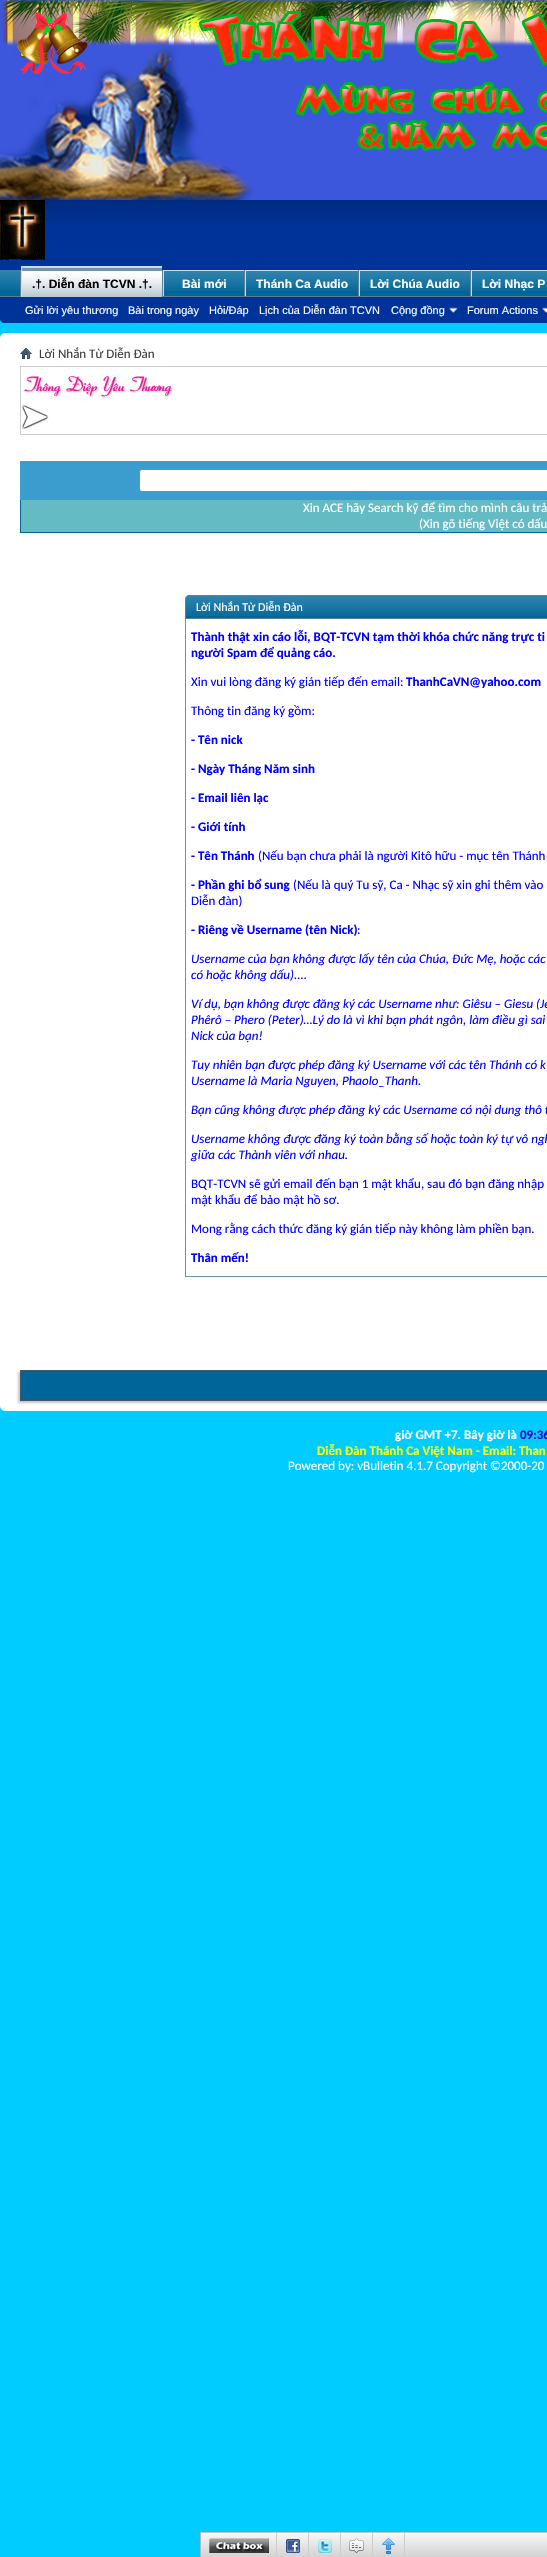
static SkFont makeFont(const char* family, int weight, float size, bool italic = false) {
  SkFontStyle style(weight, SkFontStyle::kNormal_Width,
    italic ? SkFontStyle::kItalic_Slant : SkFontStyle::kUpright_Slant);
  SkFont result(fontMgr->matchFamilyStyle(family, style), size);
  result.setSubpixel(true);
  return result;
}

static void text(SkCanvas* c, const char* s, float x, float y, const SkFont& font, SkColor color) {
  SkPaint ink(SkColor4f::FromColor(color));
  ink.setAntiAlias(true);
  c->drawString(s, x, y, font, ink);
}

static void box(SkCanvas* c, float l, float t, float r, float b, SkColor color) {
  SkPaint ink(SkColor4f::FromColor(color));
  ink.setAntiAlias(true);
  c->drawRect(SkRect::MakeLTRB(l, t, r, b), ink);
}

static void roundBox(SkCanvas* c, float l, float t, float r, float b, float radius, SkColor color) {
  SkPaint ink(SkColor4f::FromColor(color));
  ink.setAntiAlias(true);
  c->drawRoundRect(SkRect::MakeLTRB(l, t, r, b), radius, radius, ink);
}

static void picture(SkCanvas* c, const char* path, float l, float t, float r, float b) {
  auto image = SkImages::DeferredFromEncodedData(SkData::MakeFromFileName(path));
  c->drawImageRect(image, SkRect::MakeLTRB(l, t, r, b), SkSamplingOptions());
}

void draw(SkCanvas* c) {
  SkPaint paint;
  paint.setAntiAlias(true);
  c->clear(0xff00ccff);
  picture(c, "img_01.png", 0, 0, 547, 200);
  paint.setColor(0xff003399);
  c->drawPath(SkPathBuilder().moveTo(0, 200).lineTo(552, 200).lineTo(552, 318).cubicTo(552, 321, 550, 323, 547, 323).lineTo(5, 323).cubicTo(2, 323, 0, 321, 0, 318).close().detach(), paint);
  picture(c, "img_02.png", 45, 200, 547, 226);
  picture(c, "img_03.png", 0, 200, 45, 260);
  c->drawPath(SkPathBuilder().moveTo(0, 270).lineTo(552, 270).lineTo(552, 318).cubicTo(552, 321, 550, 323, 547, 323).lineTo(5, 323).cubicTo(2, 323, 0, 321, 0, 318).close().detach(), paint);
  box(c, 0, 270, 20, 296, 0xff006699);
  picture(c, "img_04.png", 0, 270, 20, 290);
  box(c, 162, 270, 163, 296, 0xff5a7f97);
  box(c, 20, 270, 21, 296, 0xff5a7f97);
  box(c, 244, 270, 245, 297, 0xff5a7f97);
  box(c, 163, 270, 244, 271, 0xffcedfeb);
  box(c, 163, 270, 164, 297, 0xffcedfeb);
  box(c, 358, 270, 359, 297, 0xff5a7f97);
  box(c, 245, 270, 358, 271, 0xffcedfeb);
  box(c, 245, 270, 246, 297, 0xffcedfeb);
  box(c, 470, 270, 471, 297, 0xff5a7f97);
  box(c, 359, 270, 470, 271, 0xffcedfeb);
  box(c, 359, 270, 360, 297, 0xffcedfeb);
  box(c, 471, 270, 547, 271, 0xffcedfeb);
  box(c, 471, 270, 472, 297, 0xffcedfeb);
  box(c, 0, 296, 547, 297, 0xff5a7f97);
  box(c, 22, 267, 162, 297, 0xff7192a8);
  picture(c, "img_05.png", 22, 267, 162, 297);
  box(c, 21, 266, 162, 267, 0xffcedfeb);
  box(c, 21, 266, 22, 297, 0xffcedfeb);
  SkFont face1 = makeFont("Liberation Sans", 700, 12);
  text(c, ".†. Diễn đàn TCVN .†.", 32, 288, face1, 0xff000000);
  SkFont face2 = makeFont("Liberation Sans", 400, 11);
  text(c, "Gửi lời yêu thương", 25, 314, face2, 0xffffffff);
  text(c, "Bài trong ngày", 128, 314, face2, 0xffffffff);
  text(c, "Hỏi/Ðáp", 209, 314, face2, 0xffffffff);
  text(c, "Lịch của Diễn đàn TCVN", 259, 314, face2, 0xffffffff);
  text(c, "Cộng đồng", 391, 314, face2, 0xffffffff);
  picture(c, "img_06.png", 449, 307, 458, 313);
  text(c, "Forum Actions", 467, 314, face2, 0xffffffff);
  picture(c, "img_07.png", 542, 307, 547, 313);
  box(c, 164, 271, 244, 296, 0xff006699);
  picture(c, "img_08.png", 164, 271, 244, 291);
  text(c, "Bài mới", 182, 288, face1, 0xffffffff);
  box(c, 246, 271, 358, 296, 0xff006699);
  picture(c, "img_09.png", 246, 271, 358, 291);
  text(c, "Thánh Ca Audio", 256, 288, face1, 0xffffffff);
  box(c, 360, 271, 470, 296, 0xff006699);
  picture(c, "img_10.png", 360, 271, 470, 291);
  text(c, "Lời Chúa Audio", 370, 288, face1, 0xffffffff);
  box(c, 472, 271, 547, 296, 0xff006699);
  picture(c, "img_11.png", 472, 271, 547, 291);
  text(c, "Lời Nhạc P", 482, 288, face1, 0xffffffff);
  roundBox(c, 0, 333, 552, 1411, 5, 0xffffffff);
  picture(c, "img_12.png", 20, 348, 32, 359);
  SkFont face3 = makeFont("Carlito", 400, 13);
  text(c, "Lời Nhắn Từ Diễn Ðàn", 39, 358, face3, 0xff3e3e3e);
  box(c, 20, 366, 547, 367, 0xffcccccc);
  box(c, 20, 434, 547, 435, 0xffcccccc);
  box(c, 20, 366, 21, 435, 0xffcccccc);
  picture(c, "img_13.png", 24, 376, 173, 398);
  picture(c, "img_14.png", 22, 405, 49, 429);
  box(c, 21, 500, 547, 532, 0xff64bbc3);
  box(c, 20, 532, 547, 533, 0xff006699);
  box(c, 20, 500, 21, 533, 0xff006699);
  box(c, 21, 462, 547, 499, 0xff3a9dcd);
  box(c, 20, 461, 547, 462, 0xff3a9dcd);
  box(c, 20, 499, 547, 500, 0xff3a9dcd);
  box(c, 20, 461, 21, 500, 0xff3a9dcd);
  paint.setColor(0xffffffff);
  c->drawRoundRect(SkRect::MakeLTRB(139.5f, 469.5f, 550.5f, 491.5f), 2.5f, 2.5f, paint);
  paint.setStyle(SkPaint::kStroke_Style);
  paint.setStrokeWidth(1);
  paint.setColor(0xff6b91ab);
  c->drawRoundRect(SkRect::MakeLTRB(139.5f, 469.5f, 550.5f, 491.5f), 2.5f, 2.5f, paint);
  text(c, "Xin ACE hãy Search kỹ để tìm cho mình câu trả", 303, 512, face3, 0xffffffff);
  text(c, "(Xin gõ tiếng Việt có dấu", 419, 528, face3, 0xffffffff);
  paint.setStyle(SkPaint::kFill_Style);
  paint.setColor(0xff006699);
  c->drawPath(SkPathBuilder().moveTo(190, 595).lineTo(547, 595).cubicTo(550, 595, 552, 597, 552, 600).lineTo(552, 619).lineTo(185, 619).lineTo(185, 600).cubicTo(185, 597, 187, 595, 190, 595).close().detach(), paint);
  picture(c, "img_15.png", 185, 596, 547, 616);
  paint.setStyle(SkPaint::kStroke_Style);
  paint.setColor(0xff5a7f97);
  c->drawPath(SkPathBuilder().moveTo(190, 595.5f).lineTo(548, 595.5f).cubicTo(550.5f, 595.5f, 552.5f, 597.5f, 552.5f, 600).lineTo(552.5f, 618.5f).lineTo(185.5f, 618.5f).lineTo(185.5f, 600).cubicTo(185.5f, 597.5f, 187.5f, 595.5f, 190, 595.5f).close().detach(), paint);
  SkFont face4 = makeFont("Carlito", 400, 12);
  text(c, "Lời Nhắn Từ Diễn Ðàn", 196, 611, face4, 0xffffffff);
  box(c, 185, 1276, 547, 1277, 0xff6b91ab);
  box(c, 185, 619, 186, 1277, 0xff6b91ab);
  SkFont face5 = makeFont("Carlito", 700, 13);
  text(c, "Thành thật xin cáo lỗi, BQT-TCVN tạm thời khóa chức năng trực ti", 191, 641, face5, 0xff0000ff);
  text(c, "người Spam để quảng cáo.", 191, 657, face5, 0xff0000ff);
  text(c, "Xin vui lòng đăng ký gián tiếp đến email:", 191, 686, face3, 0xff0000ff);
  text(c, "ThanhCaVN@yahoo.com", 406, 686, face5, 0xff0000ff);
  text(c, "Thông tin đăng ký gồm:", 191, 715, face3, 0xff0000ff);
  text(c, "- Tên nick", 191, 744, face5, 0xff0000ff);
  text(c, "- Ngày Tháng Năm sinh", 191, 773, face5, 0xff0000ff);
  text(c, "- Email liên lạc", 191, 802, face5, 0xff0000ff);
  text(c, "- Giới tính", 191, 831, face5, 0xff0000ff);
  text(c, "- Tên Thánh", 191, 860, face5, 0xff0000ff);
  text(c, "(Nếu bạn chưa phải là người Kitô hữu - mục tên Thánh", 258, 860, face3, 0xff0000ff);
  text(c, "- Phần ghi bổ sung", 191, 889, face5, 0xff0000ff);
  text(c, "(Nếu là quý Tu sỹ, Ca - Nhạc sỹ xin ghi thêm vào", 293, 889, face3, 0xff0000ff);
  text(c, "Diễn đàn)", 191, 905, face3, 0xff0000ff);
  text(c, "- Riêng về Username (tên Nick)", 191, 934, face5, 0xff0000ff);
  text(c, ":", 357, 934, face3, 0xff0000ff);
  SkFont face6 = makeFont("Carlito", 400, 13, true);
  text(c, "Username của bạn không được lấy tên của Chúa, Đức Mẹ, hoặc các", 191, 963, face6, 0xff0000ff);
  text(c, "có hoặc không dấu)....", 191, 979, face6, 0xff0000ff);
  text(c, "Ví dụ, bạn không được đăng ký các Username như: Giêsu – Giesu (Je", 191, 1008, face6, 0xff0000ff);
  text(c, "Phêrô – Phero (Peter)…Lý do là vì khi bạn phát ngôn, làm điều gì sai", 191, 1024, face6, 0xff0000ff);
  text(c, "Nick của bạn!", 191, 1040, face6, 0xff0000ff);
  text(c, "Tuy nhiên bạn được phép đăng ký Username với các tên Thánh có k", 191, 1069, face6, 0xff0000ff);
  text(c, "Username là Maria Nguyen, Phaolo_Thanh.", 191, 1085, face6, 0xff0000ff);
  text(c, "Bạn cũng không được phép đăng ký các Username có nội dung thô t", 191, 1114, face6, 0xff0000ff);
  text(c, "Username không được đăng ký toàn bằng số hoặc toàn ký tự vô ngh", 191, 1143, face6, 0xff0000ff);
  text(c, "giữa các Thành viên với nhau.", 191, 1159, face6, 0xff0000ff);
  text(c, "BQT-TCVN sẽ gửi email đến bạn 1 mật khẩu, sau đó bạn đăng nhập", 191, 1188, face3, 0xff0000ff);
  text(c, "mật khẩu để bảo mật hồ sơ.", 191, 1204, face3, 0xff0000ff);
  text(c, "Mong rằng cách thức đăng ký gián tiếp này không làm phiền bạn.", 191, 1233, face3, 0xff0000ff);
  text(c, "Thân mến!", 191, 1262, face5, 0xff0000ff);
  paint.setStyle(SkPaint::kFill_Style);
  paint.setColor(0xffc8c8c8);
  paint.setMaskFilter(SkMaskFilter::MakeBlur(kNormal_SkBlurStyle, 1));
  c->drawRect(SkRect::MakeLTRB(18, 1372, 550, 1403), paint);
  paint.setMaskFilter(nullptr);
  paint.setColor(0xff006699);
  c->drawRect(SkRect::MakeLTRB(20.5f, 1370.5f, 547.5f, 1400.5f), paint);
  paint.setStyle(SkPaint::kStroke_Style);
  paint.setColor(0xff425769);
  c->drawRect(SkRect::MakeLTRB(20.5f, 1370.5f, 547.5f, 1400.5f), paint);
  text(c, "giờ GMT +7. Bây giờ là", 395, 1439, face5, 0xffffffff);
  text(c, "09:36", 520, 1439, face5, 0xff3300cc);
  text(c, "Diễn Đàn Thánh Ca Việt Nam - Email: Than", 317, 1455, face5, 0xffffff00);
  text(c, "Powered by: vBulletin 4.1.7 Copyright ©2000-20", 288, 1470, face3, 0xffffffff);
  picture(c, "img_16.png", 201, 2532, 547, 2557);
  box(c, 200, 2532, 201, 2557, 0xffb5b5b5);
  box(c, 276, 2533, 277, 2556, 0xffcccccc);
  picture(c, "img_17.png", 209, 2538, 269, 2553);
  box(c, 308, 2533, 309, 2556, 0xffcccccc);
  picture(c, "img_18.png", 286, 2539, 300, 2553);
  box(c, 340, 2533, 341, 2556, 0xffcccccc);
  picture(c, "img_19.png", 318, 2539, 332, 2553);
  box(c, 372, 2533, 373, 2556, 0xffcccccc);
  picture(c, "img_20.png", 349, 2538, 364, 2553);
  box(c, 404, 2533, 405, 2556, 0xffcccccc);
  picture(c, "img_21.png", 382, 2538, 395, 2554);
}
